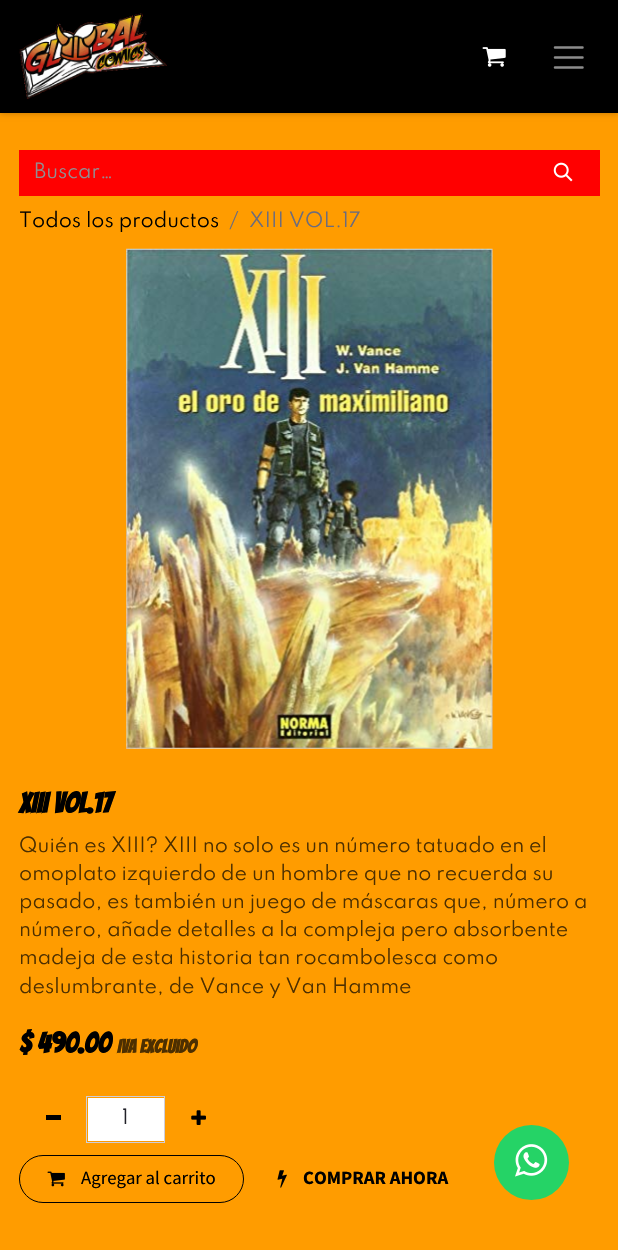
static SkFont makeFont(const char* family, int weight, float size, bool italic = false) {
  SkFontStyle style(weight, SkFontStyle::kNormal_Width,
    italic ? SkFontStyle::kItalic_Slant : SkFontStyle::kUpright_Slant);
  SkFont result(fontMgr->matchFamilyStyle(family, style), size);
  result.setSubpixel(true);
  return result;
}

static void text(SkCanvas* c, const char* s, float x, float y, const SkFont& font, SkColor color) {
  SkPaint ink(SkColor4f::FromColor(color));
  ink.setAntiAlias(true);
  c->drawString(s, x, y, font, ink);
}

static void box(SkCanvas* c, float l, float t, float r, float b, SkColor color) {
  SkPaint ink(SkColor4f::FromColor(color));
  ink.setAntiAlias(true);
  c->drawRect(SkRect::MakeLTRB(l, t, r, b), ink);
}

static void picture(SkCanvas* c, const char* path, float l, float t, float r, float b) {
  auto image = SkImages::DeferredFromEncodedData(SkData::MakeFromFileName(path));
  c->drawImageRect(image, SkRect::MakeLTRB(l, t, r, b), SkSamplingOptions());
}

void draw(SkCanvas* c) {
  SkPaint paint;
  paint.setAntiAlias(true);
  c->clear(0xffff9c00);
  paint.setColor(0x40000000);
  paint.setMaskFilter(SkMaskFilter::MakeBlur(kNormal_SkBlurStyle, 3));
  c->drawRect(SkRect::MakeLTRB(0, 0, 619, 113), paint);
  paint.setMaskFilter(nullptr);
  box(c, 0, 0, 618, 113, 0xff000000);
  picture(c, "img_01.png", 19, 13, 167, 99);
  picture(c, "img_02.png", 482, 47, 506, 67);
  paint.setStyle(SkPaint::kStroke_Style);
  paint.setStrokeWidth(2.5f);
  paint.setStrokeCap(SkPaint::kRound_Cap);
  paint.setColor(0xff8c8c8c);
  c->drawPath(SkPathBuilder().moveTo(555, 47.5f).lineTo(582.5f, 47.5f).moveTo(555, 57.5f).lineTo(582.5f, 57.5f).moveTo(555, 67.5f).lineTo(582.5f, 67.5f).detach(), paint);
  box(c, 19, 150, 600, 196, 0xffff0000);
  SkFont face1 = makeFont("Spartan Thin", 400, 18.75f);
  text(c, "Buscar…", 34, 178, face1, 0xff909094);
  picture(c, "img_03.png", 553, 162, 573, 182);
  text(c, "Todos los productos", 19, 227, face1, 0xff000000);
  text(c, "/", 229, 227, face1, 0xff6c6c7d);
  text(c, "XIII VOL.17", 249, 227, face1, 0xff6c6c7d);
  picture(c, "img_04.png", 126, 248, 493, 749);
  SkFont face2 = makeFont("Bangers", 700, 28.5f);
  text(c, "XIII VOL.17", 19, 813, face2, 0xff000000);
  text(c, "Quién es XIII? XIII no solo es un número tatuado en el", 19, 852, face1, 0xff4d2f00);
  text(c, "omoplato izquierdo de un hombre que no recuerda su", 19, 880, face1, 0xff4d2f00);
  text(c, "pasado, es también un juego de máscaras que, número a", 19, 908, face1, 0xff4d2f00);
  text(c, "número, añade detalles a la compleja pero absorbente", 19, 936, face1, 0xff4d2f00);
  text(c, "madeja de esta historia tan rocambolesca como", 19, 964, face1, 0xff4d2f00);
  text(c, "deslumbrante, de Vance y Van Hamme", 19, 993, face1, 0xff4d2f00);
  text(c, "$ 490.00", 19, 1053, face2, 0xff000000);
  SkFont face3 = makeFont("Bangers", 700, 18.75f);
  text(c, "IVA excluido", 117, 1053, face3, 0xff4d2f00);
  box(c, 46, 1115, 61, 1120, 0xff000000);
  box(c, 88, 1098, 164, 1141, 0xffffffff);
  paint.setStrokeWidth(1);
  paint.setStrokeCap(SkPaint::kButt_Cap);
  paint.setColor(0xffceceda);
  c->drawRect(SkRect::MakeLTRB(86.5f, 1096.5f, 164.5f, 1142.5f), paint);
  text(c, "1", 122, 1124, face1, 0xff212129);
  picture(c, "img_05.png", 191, 1110, 206, 1125);
  paint.setColor(0xff000000);
  c->drawRoundRect(SkRect::MakeLTRB(19.5f, 1155.5f, 243.5f, 1202.5f), 23.5f, 23.5f, paint);
  picture(c, "img_06.png", 47, 1171, 65, 1187);
  SkFont face4 = makeFont("Source Sans Pro", 400, 18.75f);
  text(c, "Agregar al carrito", 81, 1184, face4, 0xff000000);
  picture(c, "img_07.png", 277, 1170, 287, 1188);
  SkFont face5 = makeFont("Source Sans Pro", 700, 18.75f);
  text(c, "COMPRAR AHORA", 303, 1184, face5, 0xff000000);
  paint.setStyle(SkPaint::kFill_Style);
  paint.setColor(0xff25d366);
  c->drawCircle(531.5f, 1162.5f, 37.5f, paint);
  picture(c, "img_08.png", 515, 1144, 548, 1177);
}
